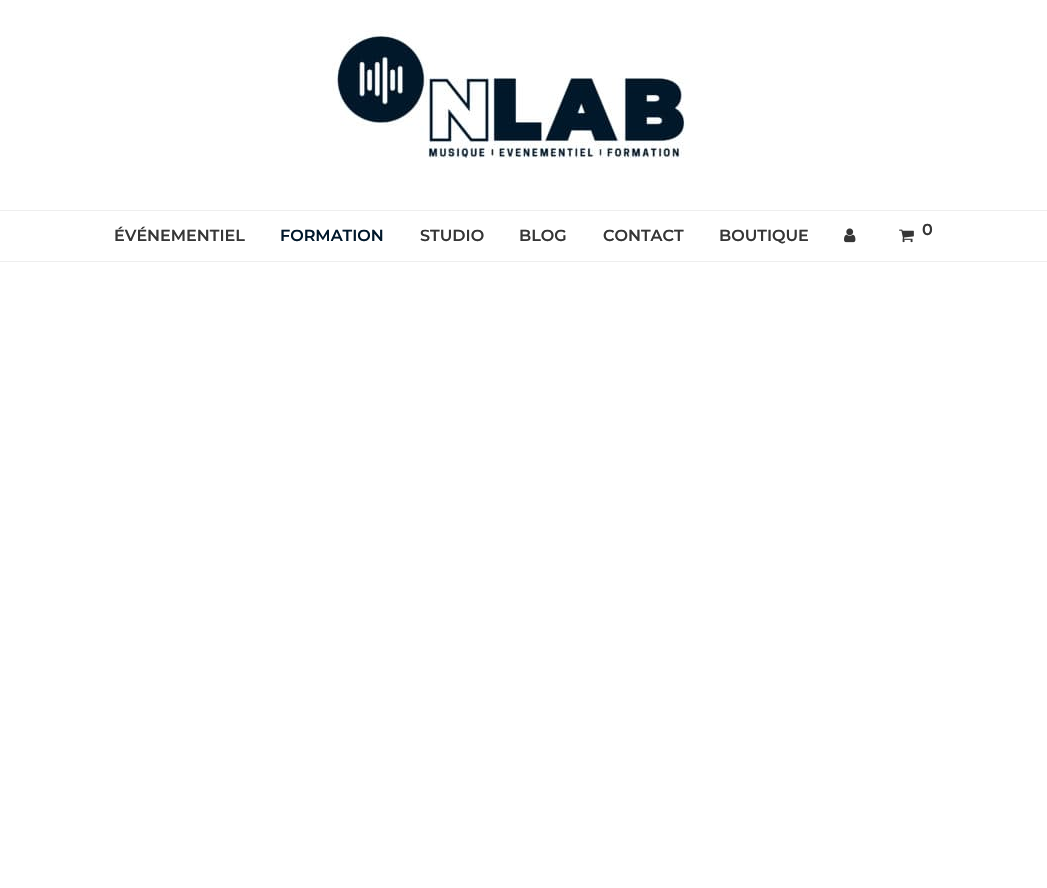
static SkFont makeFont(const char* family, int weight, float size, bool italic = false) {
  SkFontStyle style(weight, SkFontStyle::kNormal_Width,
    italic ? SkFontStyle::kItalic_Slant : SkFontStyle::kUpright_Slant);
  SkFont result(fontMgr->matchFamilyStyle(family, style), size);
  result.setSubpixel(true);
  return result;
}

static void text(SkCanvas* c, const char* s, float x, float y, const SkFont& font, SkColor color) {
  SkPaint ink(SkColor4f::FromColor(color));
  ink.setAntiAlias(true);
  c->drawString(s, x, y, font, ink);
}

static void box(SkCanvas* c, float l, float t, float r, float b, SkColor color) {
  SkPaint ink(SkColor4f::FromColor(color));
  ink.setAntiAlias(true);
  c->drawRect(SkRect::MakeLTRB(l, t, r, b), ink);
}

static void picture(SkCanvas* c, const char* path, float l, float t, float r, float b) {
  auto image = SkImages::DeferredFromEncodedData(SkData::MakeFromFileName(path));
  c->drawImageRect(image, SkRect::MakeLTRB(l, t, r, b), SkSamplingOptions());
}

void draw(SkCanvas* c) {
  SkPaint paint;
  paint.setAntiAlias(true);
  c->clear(0xffffffff);
  picture(c, "img_01.png", 332, 30, 690, 158);
  box(c, 0, 210, 1047, 211, 0xffeeeeee);
  box(c, 0, 261, 1047, 262, 0xffeeeeee);
  SkFont face1 = makeFont("Montserrat", 600, 16);
  text(c, "ÉVÉNEMENTIEL", 114, 241, face1, 0xff363636);
  text(c, "FORMATION", 280, 241, face1, 0xff01182b);
  text(c, "STUDIO", 420, 241, face1, 0xff363636);
  text(c, "BLOG", 519, 241, face1, 0xff363636);
  text(c, "CONTACT", 603, 241, face1, 0xff363636);
  text(c, "BOUTIQUE", 719, 241, face1, 0xff363636);
  picture(c, "img_02.png", 844, 228, 856, 243);
  picture(c, "img_03.png", 899, 229, 914, 243);
  text(c, "0", 922, 235, face1, 0xff363636);
}
